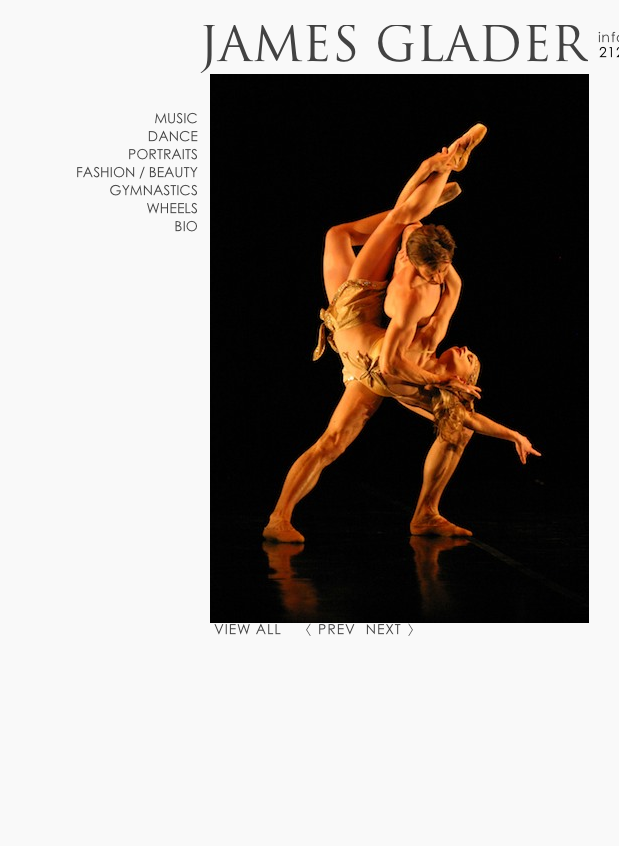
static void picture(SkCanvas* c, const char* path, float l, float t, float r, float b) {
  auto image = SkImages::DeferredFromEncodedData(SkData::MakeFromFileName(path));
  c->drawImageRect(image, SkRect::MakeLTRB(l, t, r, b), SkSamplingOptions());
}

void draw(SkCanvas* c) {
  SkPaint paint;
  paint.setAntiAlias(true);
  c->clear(0xfff9f9f9);
  picture(c, "img_01.png", 200, 25, 588, 73);
  picture(c, "img_02.png", 598, 31, 619, 43);
  picture(c, "img_03.png", 599, 46, 619, 58);
  picture(c, "img_04.png", 155, 112, 197, 124);
  picture(c, "img_05.png", 148, 130, 198, 142);
  picture(c, "img_06.png", 129, 148, 197, 160);
  picture(c, "img_07.png", 77, 166, 198, 179);
  picture(c, "img_08.png", 110, 184, 197, 196);
  picture(c, "img_09.png", 147, 202, 197, 214);
  picture(c, "img_10.png", 175, 220, 197, 232);
  picture(c, "img_11.png", 210, 74, 589, 623);
  picture(c, "img_12.png", 214, 623, 281, 635);
  picture(c, "img_13.png", 306, 623, 355, 636);
  picture(c, "img_14.png", 366, 623, 413, 636);
}
